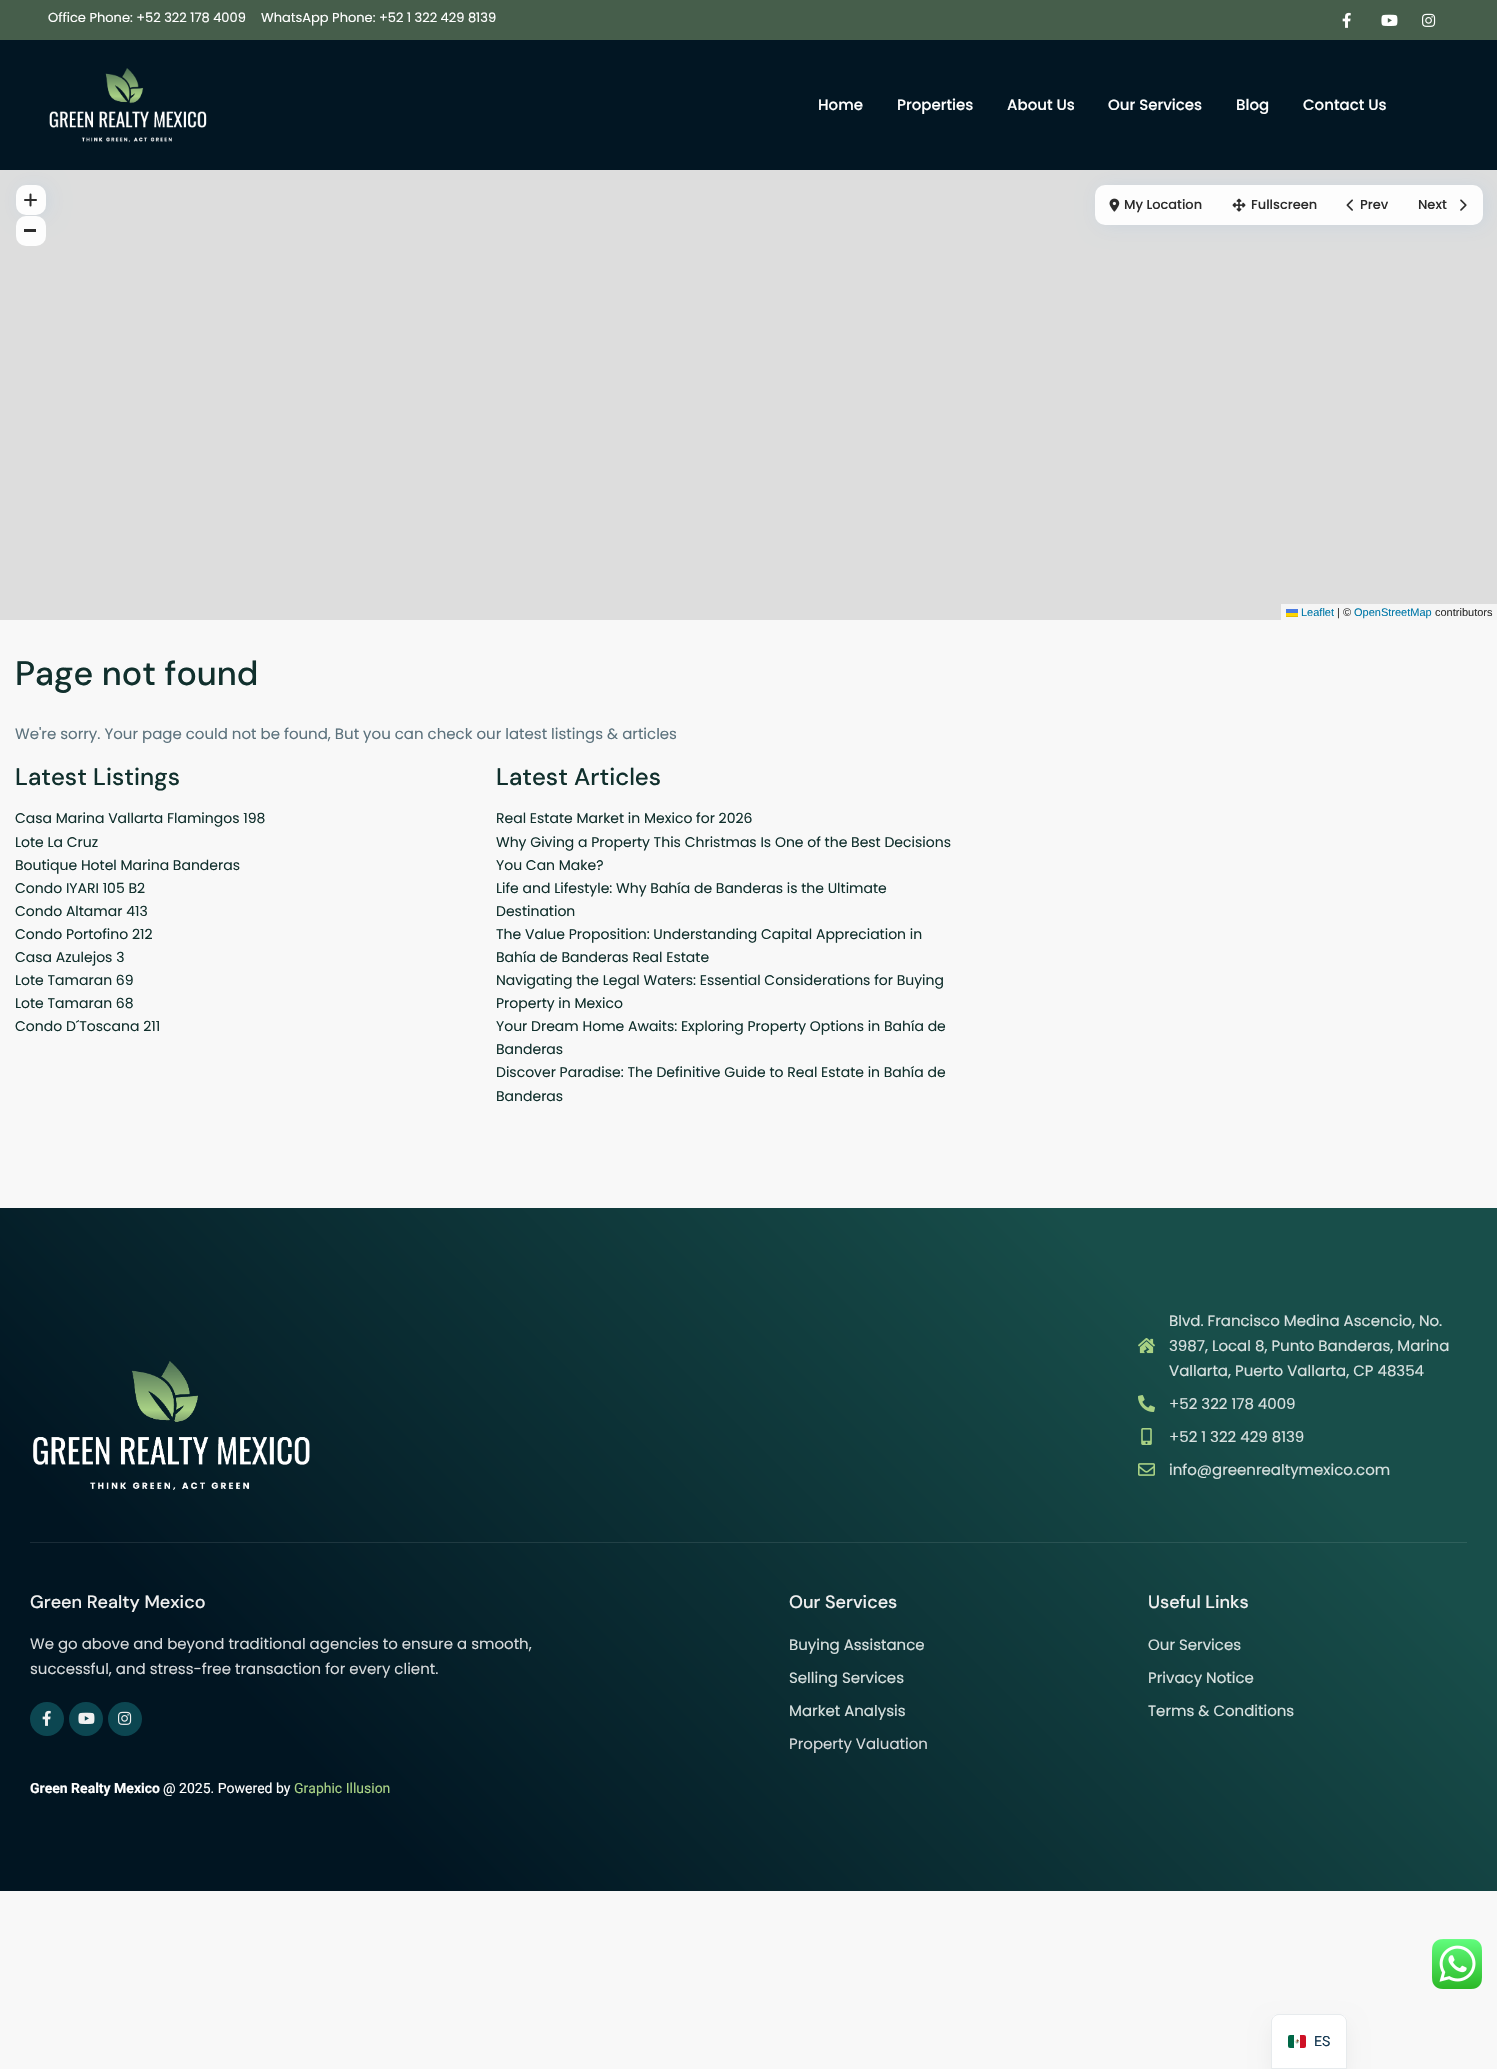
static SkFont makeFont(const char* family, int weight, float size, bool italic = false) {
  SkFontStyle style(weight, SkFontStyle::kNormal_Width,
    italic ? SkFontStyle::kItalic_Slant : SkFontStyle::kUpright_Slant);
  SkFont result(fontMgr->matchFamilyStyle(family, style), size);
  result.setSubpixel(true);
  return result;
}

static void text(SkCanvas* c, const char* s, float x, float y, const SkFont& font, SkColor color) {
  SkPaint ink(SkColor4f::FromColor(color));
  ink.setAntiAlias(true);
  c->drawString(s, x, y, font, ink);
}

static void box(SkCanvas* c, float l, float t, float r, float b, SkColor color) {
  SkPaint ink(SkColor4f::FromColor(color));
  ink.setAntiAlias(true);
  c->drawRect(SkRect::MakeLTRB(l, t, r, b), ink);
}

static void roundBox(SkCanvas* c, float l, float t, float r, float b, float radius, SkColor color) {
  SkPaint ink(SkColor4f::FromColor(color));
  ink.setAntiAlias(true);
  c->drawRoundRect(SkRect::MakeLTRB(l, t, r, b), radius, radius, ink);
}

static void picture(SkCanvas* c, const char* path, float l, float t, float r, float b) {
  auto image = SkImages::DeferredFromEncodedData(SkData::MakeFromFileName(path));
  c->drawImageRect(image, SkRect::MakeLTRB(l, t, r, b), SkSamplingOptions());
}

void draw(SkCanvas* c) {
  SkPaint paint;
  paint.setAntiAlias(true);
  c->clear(0xfff8f8f8);
  box(c, 0, 0, 1497, 40, 0xff465e4b);
  SkFont face1 = makeFont("Poppins", 400, 13);
  text(c, "Office Phone: +52 322 178 4009", 48, 22, face1, 0xffffffff);
  text(c, "WhatsApp Phone: +52 1 322 429 8139", 261, 22, face1, 0xffffffff);
  picture(c, "img_01.png", 1342, 12, 1351, 28);
  picture(c, "img_02.png", 1381, 14, 1398, 26);
  picture(c, "img_03.png", 1422, 13, 1436, 27);
  box(c, 0, 170, 1497, 620, 0xffdddddd);
  paint.setColor(0x14006ee1);
  paint.setMaskFilter(SkMaskFilter::MakeBlur(kNormal_SkBlurStyle, 10));
  c->drawRoundRect(SkRect::MakeLTRB(19, 186, 49, 216), 10, 10, paint);
  paint.setMaskFilter(nullptr);
  paint.setMaskFilter(SkMaskFilter::MakeBlur(kNormal_SkBlurStyle, 10));
  c->drawRoundRect(SkRect::MakeLTRB(1098, 186, 1486, 226), 10, 10, paint);
  paint.setMaskFilter(nullptr);
  box(c, 0, 40, 1497, 170, 0xff021623);
  picture(c, "img_04.png", 49, 68, 207, 143);
  SkFont face2 = makeFont("Poppins", 500, 15);
  text(c, "Home", 818, 110, face2, 0xffffffff);
  text(c, "Properties", 897, 110, face2, 0xffffffff);
  text(c, "About Us", 1007, 110, face2, 0xffffffff);
  text(c, "Our Services", 1108, 110, face2, 0xffffffff);
  text(c, "Blog", 1236, 110, face2, 0xffffffff);
  text(c, "Contact Us", 1303, 110, face2, 0xffffffff);
  roundBox(c, 16, 185, 46, 215, 10, 0xfffdfdfd);
  picture(c, "img_05.png", 24, 193, 37, 207);
  roundBox(c, 1095, 185, 1483, 225, 10, 0xfffdfdfd);
  picture(c, "img_06.png", 1109, 198, 1120, 212);
  SkFont face3 = makeFont("Poppins", 500, 13);
  text(c, "My Location", 1124, 209, face3, 0xff2b2b2b);
  picture(c, "img_07.png", 1232, 198, 1246, 212);
  text(c, "Fullscreen", 1251, 209, face3, 0xff2b2b2b);
  picture(c, "img_08.png", 1346, 199, 1353, 211);
  text(c, "Prev", 1360, 209, face3, 0xff2b2b2b);
  text(c, "Next", 1418, 209, face3, 0xff2b2b2b);
  picture(c, "img_09.png", 1460, 199, 1467, 211);
  roundBox(c, 16, 216, 46, 246, 10, 0xf2ffffff);
  box(c, 24, 229, 36, 232, 0xff2d2d2d);
  box(c, 1281, 604, 1497, 620, 0xfff5f5f5);
  SkFont face4 = makeFont("Liberation Sans", 400, 11);
  text(c, "Leaflet", 1301, 616, face4, 0xff0078a8);
  box(c, 1286, 609, 1298, 613, 0xff4c7be1);
  box(c, 1286, 613, 1298, 616, 0xffffd500);
  box(c, 1286, 616, 1298, 617, 0xffe0bc00);
  text(c, "| ©", 1337, 616, face4, 0xff333333);
  text(c, "OpenStreetMap", 1354, 616, face4, 0xff0078a8);
  text(c, "contributors", 1435, 616, face4, 0xff333333);
  SkFont face5 = makeFont("DM Sans", 500, 34);
  text(c, "Page not found", 15, 685, face5, 0xff11302d);
  SkFont face6 = makeFont("Poppins", 400, 15);
  text(c, "We're sorry. Your page could not be found, But you can check our latest listings & articles", 15, 739, face6, 0xff5c727d);
  SkFont face7 = makeFont("DM Sans", 500, 24);
  text(c, "Latest Listings", 15, 785, face7, 0xff11302d);
  SkFont face8 = makeFont("Poppins", 400, 14);
  text(c, "Casa Marina Vallarta Flamingos 198", 15, 823, face8, 0xff11302d);
  text(c, "Lote La Cruz", 15, 847, face8, 0xff11302d);
  text(c, "Boutique Hotel Marina Banderas", 15, 870, face8, 0xff11302d);
  text(c, "Condo IYARI 105 B2", 15, 893, face8, 0xff11302d);
  text(c, "Condo Altamar 413", 15, 916, face8, 0xff11302d);
  text(c, "Condo Portofino 212", 15, 939, face8, 0xff11302d);
  text(c, "Casa Azulejos 3", 15, 962, face8, 0xff11302d);
  text(c, "Lote Tamaran 69", 15, 985, face8, 0xff11302d);
  text(c, "Lote Tamaran 68", 15, 1008, face8, 0xff11302d);
  text(c, "Condo D´Toscana 211", 15, 1031, face8, 0xff11302d);
  text(c, "Latest Articles", 496, 785, face7, 0xff11302d);
  text(c, "Real Estate Market in Mexico for 2026", 496, 823, face8, 0xff11302d);
  text(c, "Why Giving a Property This Christmas Is One of the Best Decisions", 496, 847, face8, 0xff11302d);
  text(c, "You Can Make?", 496, 870, face8, 0xff11302d);
  text(c, "Life and Lifestyle: Why Bahía de Banderas is the Ultimate", 496, 893, face8, 0xff11302d);
  text(c, "Destination", 496, 916, face8, 0xff11302d);
  text(c, "The Value Proposition: Understanding Capital Appreciation in", 496, 939, face8, 0xff11302d);
  text(c, "Bahía de Banderas Real Estate", 496, 962, face8, 0xff11302d);
  text(c, "Navigating the Legal Waters: Essential Considerations for Buying", 496, 985, face8, 0xff11302d);
  text(c, "Property in Mexico", 496, 1008, face8, 0xff11302d);
  text(c, "Your Dream Home Awaits: Exploring Property Options in Bahía de", 496, 1031, face8, 0xff11302d);
  text(c, "Banderas", 496, 1054, face8, 0xff11302d);
  text(c, "Discover Paradise: The Definitive Guide to Real Estate in Bahía de", 496, 1077, face8, 0xff11302d);
  text(c, "Banderas", 496, 1101, face8, 0xff11302d);
  {
    const SkColor colors[] = {0xff011522, 0xff184e4a};
    const float stops[] = {0.2f, 0.8f};
    const SkPoint ends[] = {{204, 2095}, {1294, 1005}};
    paint.setShader(SkGradientShader::MakeLinear(ends, colors, stops, 2, SkTileMode::kClamp));
    paint.setAlpha(255);
  }
  c->drawRect(SkRect::MakeLTRB(0, 1208, 1497, 1891), paint);
  {
    const SkColor colors[] = {0xff1a2c38, 0xff2f605c};
    const float stops[] = {0.2f, 0.8f};
    const SkPoint ends[] = {{204, 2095}, {1294, 1005}};
    paint.setShader(SkGradientShader::MakeLinear(ends, colors, stops, 2, SkTileMode::kClamp));
    paint.setAlpha(255);
  }
  c->drawRect(SkRect::MakeLTRB(30, 1542, 1467, 1543), paint);
  picture(c, "img_10.png", 33, 1361, 310, 1490);
  picture(c, "img_11.png", 1138, 1338, 1155, 1354);
  text(c, "Blvd. Francisco Medina Ascencio, No.", 1169, 1326, face6, 0xffd8e1e0);
  text(c, "3987, Local 8, Punto Banderas, Marina", 1169, 1351, face6, 0xffd8e1e0);
  text(c, "Vallarta, Puerto Vallarta, CP 48354", 1169, 1376, face6, 0xffd8e1e0);
  picture(c, "img_12.png", 1138, 1395, 1155, 1412);
  text(c, "+52 322 178 4009", 1169, 1409, face6, 0xffd8e1e0);
  picture(c, "img_13.png", 1141, 1428, 1152, 1445);
  text(c, "+52 1 322 429 8139", 1169, 1442, face6, 0xffd8e1e0);
  picture(c, "img_14.png", 1138, 1463, 1155, 1476);
  text(c, "info@greenrealtymexico.com", 1169, 1475, face6, 0xffd8e1e0);
  SkFont face9 = makeFont("DM Sans", 500, 18);
  text(c, "Green Realty Mexico", 30, 1608, face9, 0xfff0f0f0);
  text(c, "We go above and beyond traditional agencies to ensure a smooth,", 30, 1649, face6, 0xffd7dadc);
  text(c, "successful, and stress-free transaction for every client.", 30, 1674, face6, 0xffd7dadc);
  paint.setShader(nullptr);
  paint.setColor(0xff0c4651);
  c->drawCircle(47, 1719, 17, paint);
  picture(c, "img_15.png", 42, 1710, 51, 1726);
  c->drawCircle(86, 1719, 17, paint);
  picture(c, "img_16.png", 78, 1712, 95, 1724);
  c->drawCircle(125, 1719, 17, paint);
  picture(c, "img_17.png", 118, 1711, 132, 1725);
  text(c, "Our Services", 789, 1608, face9, 0xfff0f0f0);
  text(c, "Buying Assistance", 789, 1650, face6, 0xffd8e1e0);
  text(c, "Selling Services", 789, 1683, face6, 0xffd8e1e0);
  text(c, "Market Analysis", 789, 1716, face6, 0xffd8e1e0);
  text(c, "Property Valuation", 789, 1749, face6, 0xffd7dadc);
  text(c, "Useful Links", 1148, 1608, face9, 0xfff0f0f0);
  text(c, "Our Services", 1148, 1650, face6, 0xffd8e1e0);
  text(c, "Privacy Notice", 1148, 1683, face6, 0xffd8e1e0);
  text(c, "Terms & Conditions", 1148, 1716, face6, 0xffd8e1e0);
  SkFont face10 = makeFont("Roboto", 700, 14);
  text(c, "Green Realty Mexico", 30, 1793, face10, 0xffffffff);
  SkFont face11 = makeFont("Roboto", 400, 14);
  text(c, "@ 2025. Powered by", 163, 1793, face11, 0xffffffff);
  text(c, "Graphic Illusion", 294, 1793, face11, 0xffa8d184);
  picture(c, "img_18.png", 1432, 1939, 1482, 1989);
  paint.setColor(0x0d000000);
  paint.setMaskFilter(SkMaskFilter::MakeBlur(kNormal_SkBlurStyle, 10));
  c->drawRoundRect(SkRect::MakeLTRB(1271, 2024, 1347, 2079), 8, 8, paint);
  paint.setMaskFilter(nullptr);
  paint.setColor(0xffffffff);
  c->drawPath(SkPathBuilder().moveTo(1279, 2014).lineTo(1339, 2014).cubicTo(1343.5f, 2014, 1347, 2017.5f, 1347, 2022).lineTo(1347, 2069).lineTo(1271, 2069).lineTo(1271, 2022).cubicTo(1271, 2017.5f, 1274.5f, 2014, 1279, 2014).close().detach(), paint);
  paint.setStyle(SkPaint::kStroke_Style);
  paint.setStrokeWidth(1);
  paint.setColor(0x1a143852);
  c->drawPath(SkPathBuilder().moveTo(1279, 2014.5f).lineTo(1339, 2014.5f).cubicTo(1343, 2014.5f, 1346.5f, 2018, 1346.5f, 2022).lineTo(1346.5f, 2068.5f).lineTo(1271.5f, 2068.5f).lineTo(1271.5f, 2022).cubicTo(1271.5f, 2018, 1275, 2014.5f, 1279, 2014.5f).close().detach(), paint);
  picture(c, "img_19.png", 1288, 2035, 1306, 2048);
  text(c, "ES", 1314, 2046, face11, 0xff143852);
}
